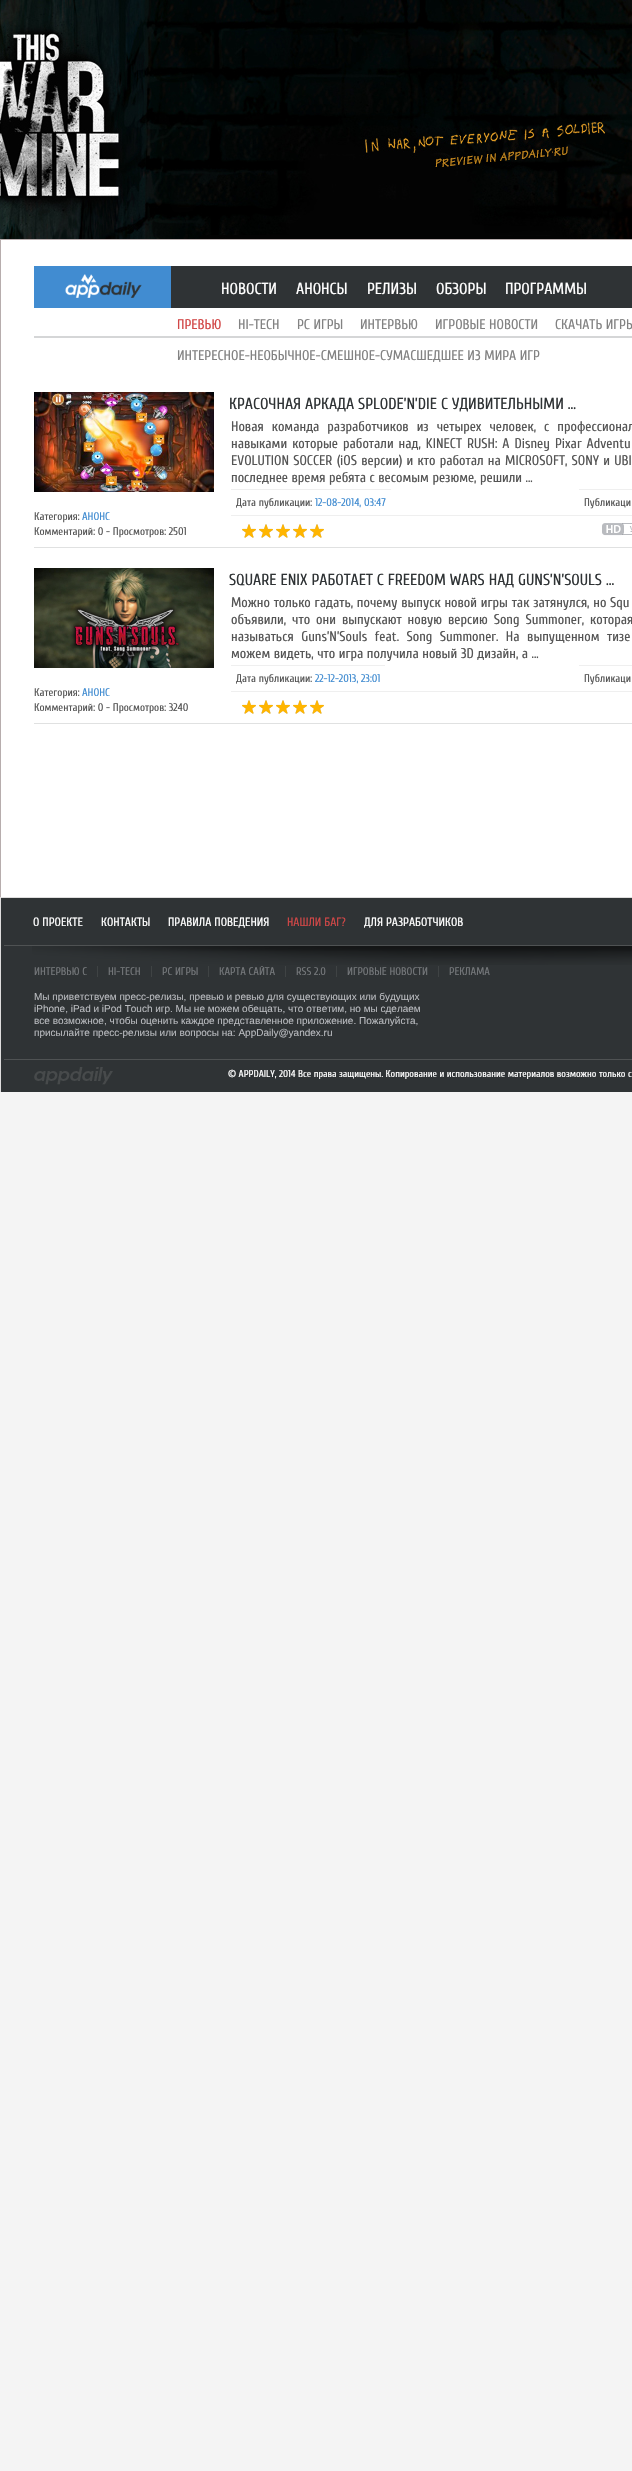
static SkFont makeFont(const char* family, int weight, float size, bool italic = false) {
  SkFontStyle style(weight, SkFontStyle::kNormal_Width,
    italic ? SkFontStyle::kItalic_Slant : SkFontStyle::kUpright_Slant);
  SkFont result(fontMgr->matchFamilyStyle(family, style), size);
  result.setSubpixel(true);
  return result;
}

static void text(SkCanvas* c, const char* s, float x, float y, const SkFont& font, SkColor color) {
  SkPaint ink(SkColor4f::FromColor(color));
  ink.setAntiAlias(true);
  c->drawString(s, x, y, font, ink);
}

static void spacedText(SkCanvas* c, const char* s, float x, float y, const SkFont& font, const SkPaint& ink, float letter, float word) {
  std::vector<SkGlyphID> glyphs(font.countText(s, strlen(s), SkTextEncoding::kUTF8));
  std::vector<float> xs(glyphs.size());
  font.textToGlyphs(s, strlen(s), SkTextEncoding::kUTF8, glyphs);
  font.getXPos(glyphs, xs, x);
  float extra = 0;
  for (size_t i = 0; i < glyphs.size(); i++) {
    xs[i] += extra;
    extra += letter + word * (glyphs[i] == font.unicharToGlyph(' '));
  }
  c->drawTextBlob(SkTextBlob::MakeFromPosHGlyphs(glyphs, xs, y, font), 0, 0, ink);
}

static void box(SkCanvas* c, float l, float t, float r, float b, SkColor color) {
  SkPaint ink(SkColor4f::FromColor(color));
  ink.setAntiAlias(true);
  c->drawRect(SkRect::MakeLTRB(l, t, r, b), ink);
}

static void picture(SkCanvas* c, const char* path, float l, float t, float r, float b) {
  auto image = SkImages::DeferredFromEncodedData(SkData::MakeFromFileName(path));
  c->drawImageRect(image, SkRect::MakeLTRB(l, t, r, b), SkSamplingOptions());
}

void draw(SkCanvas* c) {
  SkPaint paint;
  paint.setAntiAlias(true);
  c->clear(0xfff4f4f4);
  picture(c, "img_01.png", 0, 0, 632, 239);
  box(c, 1, 240, 632, 897, 0xffffffff);
  box(c, 0, 239, 632, 240, 0xffb7adad);
  box(c, 0, 239, 1, 897, 0xffb7adad);
  box(c, 34, 336, 632, 338, 0xffd5d6d7);
  box(c, 34, 266, 171, 308, 0xff418cd1);
  picture(c, "img_02.png", 65, 274, 142, 298);
  box(c, 171, 266, 632, 308, 0xff2f3335);
  SkFont face1 = makeFont("Cuprum", 400, 16);
  text(c, "НОВОСТИ", 221, 294, face1, 0xffffffff);
  text(c, "АНОНСЫ", 296, 294, face1, 0xffffffff);
  text(c, "РЕЛИЗЫ", 367, 294, face1, 0xffffffff);
  text(c, "ОБЗОРЫ", 436, 294, face1, 0xffffffff);
  text(c, "ПРОГРАММЫ", 505, 294, face1, 0xffffffff);
  SkFont face2 = makeFont("Cuprum", 400, 14);
  text(c, "ПРЕВЬЮ", 177, 329, face2, 0xffd24747);
  text(c, "HI-TECH", 238, 329, face2, 0xff828282);
  text(c, "PC ИГРЫ", 297, 329, face2, 0xff828282);
  text(c, "ИНТЕРВЬЮ", 360, 329, face2, 0xff828282);
  text(c, "ИГРОВЫЕ НОВОСТИ", 435, 329, face2, 0xff828282);
  text(c, "СКАЧАТЬ ИГРЫ", 555, 329, face2, 0xff828282);
  text(c, "ИНТЕРЕСНОЕ-НЕОБЫЧНОЕ-СМЕШНОЕ-СУМАСШЕДШЕЕ ИЗ МИРА ИГР", 177, 360, face2, 0xff828282);
  box(c, 34, 547, 632, 548, 0xffe0e1e1);
  picture(c, "img_03.png", 34, 392, 214, 492);
  text(c, "КРАСОЧНАЯ АРКАДА SPLODE’N’DIE С УДИВИТЕЛЬНЫМИ ...", 229, 409, face1, 0xff2f3335);
  paint.setColor(0xff555555);
  spacedText(c, "Новая команда разработчиков из четырех человек, с профессионал", 231, 431, face2, paint, 0, 4.5f);
  spacedText(c, "навыками которые работали над, KINECT RUSH: A Disney Pixar Adventu", 231, 448, face2, paint, 0, 1.5f);
  spacedText(c, "EVOLUTION SOCCER (iOS версии) и кто работал на MICROSOFT, SONY и UBI", 231, 465, face2, paint, 0, 0.75f);
  text(c, "последнее время ребята с весомым резюме, решили ...", 231, 482, face2, 0xff555555);
  box(c, 231, 489, 391, 490, 0xffefefef);
  SkFont face3 = makeFont("Cuprum", 400, 11);
  text(c, "Дата публикации:", 236, 506, face3, 0xff555555);
  text(c, "12-08-2014, 03:47", 315, 506, face3, 0xff418cd1);
  box(c, 579, 489, 632, 490, 0xffefefef);
  text(c, "Публикаци", 584, 506, face3, 0xff555555);
  text(c, "Категория:", 34, 520, face3, 0xff555555);
  text(c, "АНОНС", 82, 520, face3, 0xff418cd1);
  text(c, "Комментарий: 0 - Просмотров: 2501", 34, 535, face3, 0xff555555);
  box(c, 231, 515, 632, 516, 0xffefefef);
  picture(c, "img_04.png", 242, 524, 324, 538);
  picture(c, "img_05.png", 242, 524, 324, 538);
  picture(c, "img_06.png", 602, 523, 632, 536);
  box(c, 34, 723, 632, 724, 0xffe0e1e1);
  picture(c, "img_07.png", 34, 568, 214, 668);
  text(c, "SQUARE ENIX РАБОТАЕТ С FREEDOM WARS НАД GUNS’N’SOULS ...", 229, 585, face1, 0xff2f3335);
  spacedText(c, "Можно только гадать, почему выпуск новой игры так затянулся, но Squ", 231, 607, face2, paint, 0, 0.25f);
  spacedText(c, "объявили, что они выпускают новую версию Song Summoner, которая", 231, 624, face2, paint, 0, 2.5f);
  spacedText(c, "называться Guns’N’Souls feat. Song Summoner. На выпущенном тизе", 231, 641, face2, paint, 0, 4);
  text(c, "можем видеть, что игра получила новый 3D дизайн, а ...", 231, 658, face2, 0xff555555);
  box(c, 231, 665, 385, 666, 0xffefefef);
  text(c, "Дата публикации:", 236, 682, face3, 0xff555555);
  text(c, "22-12-2013, 23:01", 315, 682, face3, 0xff418cd1);
  box(c, 579, 665, 632, 666, 0xffefefef);
  text(c, "Публикаци", 584, 682, face3, 0xff555555);
  text(c, "Категория:", 34, 696, face3, 0xff555555);
  text(c, "АНОНС", 82, 696, face3, 0xff418cd1);
  text(c, "Комментарий: 0 - Просмотров: 3240", 34, 711, face3, 0xff555555);
  box(c, 231, 691, 632, 692, 0xffefefef);
  picture(c, "img_04.png", 242, 700, 324, 714);
  picture(c, "img_05.png", 242, 700, 324, 714);
  box(c, 1, 898, 632, 1092, 0xff2f3335);
  box(c, 0, 897, 632, 898, 0xffdedddd);
  box(c, 0, 897, 1, 1092, 0xffdedddd);
  box(c, 4, 945, 632, 946, 0xff4f5253);
  SkFont face4 = makeFont("Cuprum", 400, 12);
  text(c, "О ПРОЕКТЕ", 33, 926, face4, 0xffffffff);
  text(c, "КОНТАКТЫ", 101, 926, face4, 0xffffffff);
  text(c, "ПРАВИЛА ПОВЕДЕНИЯ", 168, 926, face4, 0xffffffff);
  text(c, "НАШЛИ БАГ?", 287, 926, face4, 0xffd24747);
  text(c, "ДЛЯ РАЗРАБОТЧИКОВ", 364, 926, face4, 0xffffffff);
  picture(c, "img_08.png", 32, 946, 632, 965);
  box(c, 97, 966, 98, 977, 0xff3f4344);
  text(c, "ИНТЕРВЬЮ С", 34, 975, face3, 0xff74777a);
  box(c, 151, 966, 152, 977, 0xff3f4344);
  text(c, "HI-TECH", 108, 975, face3, 0xff74777a);
  box(c, 208, 966, 209, 977, 0xff3f4344);
  text(c, "PC ИГРЫ", 162, 975, face3, 0xff74777a);
  box(c, 285, 966, 286, 977, 0xff3f4344);
  c->save();
  c->clipRect(SkRect::MakeLTRB(24, 966, 490, 977));
  text(c, "КАРТА САЙТА", 219, 975, face3, 0xff74777a);
  c->restore();
  box(c, 336, 966, 337, 977, 0xff3f4344);
  text(c, "RSS 2.0", 296, 975, face3, 0xff74777a);
  box(c, 438, 966, 439, 977, 0xff3f4344);
  text(c, "ИГРОВЫЕ НОВОСТИ", 347, 975, face3, 0xff74777a);
  text(c, "РЕКЛАМА", 449, 975, face3, 0xff74777a);
  SkFont face5 = makeFont("Liberation Sans", 400, 10);
  text(c, "Мы приветствуем пресс-релизы, превью и ревью для существующих или будущих", 34, 1000, face5, 0xffb9bbbf);
  text(c, "iPhone, iPad и iPod Touch игр. Мы не можем обещать, что ответим, но мы сделаем", 34, 1012, face5, 0xffb9bbbf);
  text(c, "все возможное, чтобы оценить каждое представленное приложение. Пожалуйста,", 34, 1024, face5, 0xffb9bbbf);
  text(c, "присылайте пресс-релизы или вопросы на: AppDaily@yandex.ru", 34, 1036, face5, 0xffb9bbbf);
  box(c, 4, 1059, 632, 1060, 0xff4f5253);
  picture(c, "img_09.png", 34, 1067, 113, 1085);
  SkFont face6 = makeFont("Cuprum", 400, 10);
  text(c, "© APPDAILY, 2014 Все права защищены. Копирование и использование материалов возможно только с", 228, 1077, face6, 0xffffffff);
}
